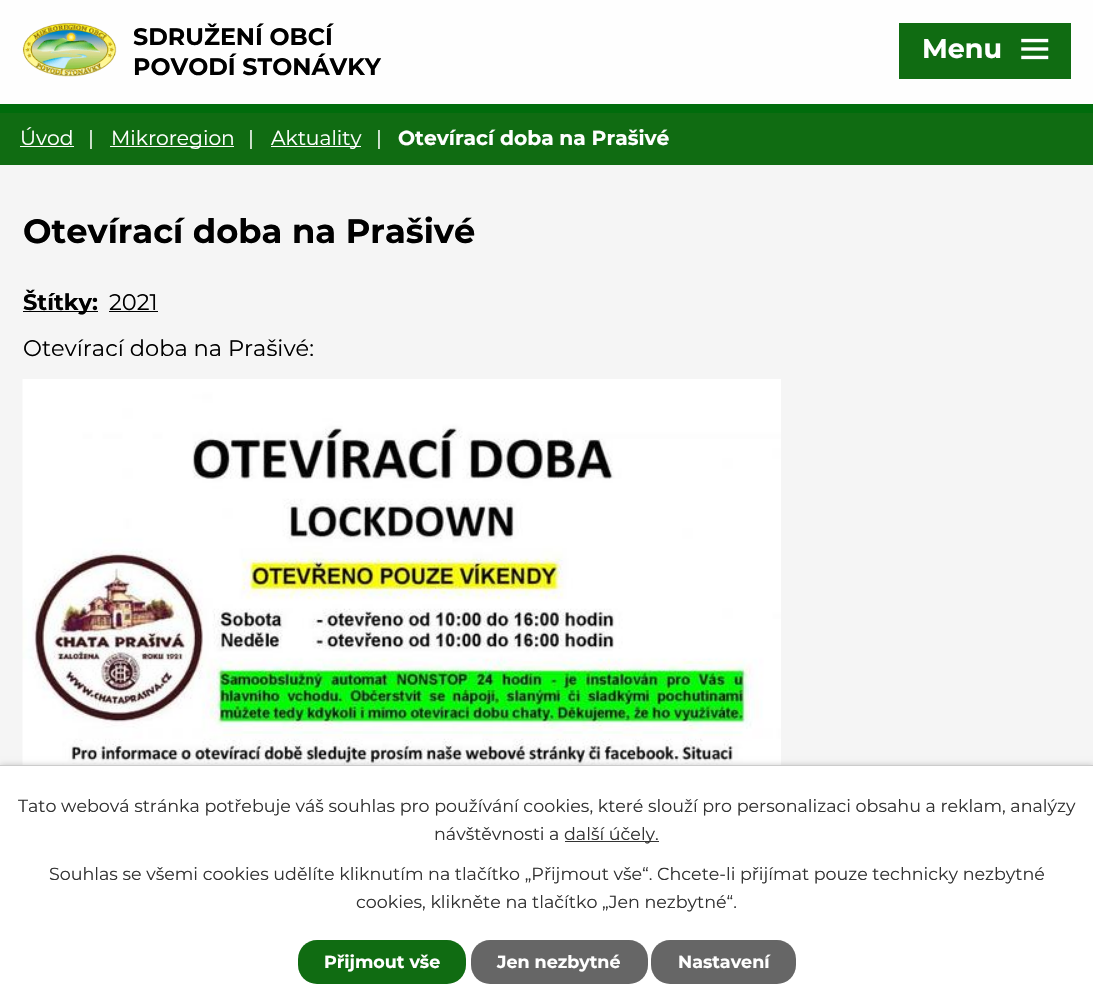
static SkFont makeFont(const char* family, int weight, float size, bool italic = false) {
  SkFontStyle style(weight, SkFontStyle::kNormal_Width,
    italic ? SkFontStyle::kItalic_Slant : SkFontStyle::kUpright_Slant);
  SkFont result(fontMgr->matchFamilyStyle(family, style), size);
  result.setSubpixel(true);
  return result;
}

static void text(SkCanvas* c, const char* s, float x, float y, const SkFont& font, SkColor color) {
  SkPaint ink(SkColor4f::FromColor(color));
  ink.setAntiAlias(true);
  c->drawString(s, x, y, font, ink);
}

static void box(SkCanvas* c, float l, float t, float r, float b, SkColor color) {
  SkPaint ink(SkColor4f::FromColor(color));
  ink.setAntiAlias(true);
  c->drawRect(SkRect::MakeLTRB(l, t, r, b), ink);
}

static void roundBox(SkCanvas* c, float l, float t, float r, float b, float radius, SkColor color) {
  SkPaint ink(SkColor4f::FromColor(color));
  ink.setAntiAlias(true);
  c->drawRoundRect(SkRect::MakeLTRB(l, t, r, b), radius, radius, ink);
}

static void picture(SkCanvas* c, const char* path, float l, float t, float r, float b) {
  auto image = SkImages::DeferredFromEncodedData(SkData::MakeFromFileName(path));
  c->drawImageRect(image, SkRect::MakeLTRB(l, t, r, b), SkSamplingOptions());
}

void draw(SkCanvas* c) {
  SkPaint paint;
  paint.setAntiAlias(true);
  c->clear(0xfff5f5f5);
  box(c, 0, 0, 1093, 104, 0xfffefefe);
  box(c, 0, 104, 1093, 113, 0xff006c0c);
  picture(c, "img_01.png", 22, 22, 117, 77);
  SkFont face1 = makeFont("Montserrat", 700, 23.75f);
  text(c, "SDRUŽENÍ OBCÍ", 133, 45, face1, 0xff000000);
  text(c, "POVODÍ STONÁVKY", 133, 75, face1, 0xff000000);
  box(c, 899, 23, 1071, 79, 0xff106c12);
  SkFont face2 = makeFont("Montserrat", 700, 27);
  text(c, "Menu", 922, 58, face2, 0xffffffff);
  picture(c, "img_02.png", 1021, 38, 1049, 60);
  box(c, 0, 113, 1093, 165, 0xff106c12);
  SkFont face3 = makeFont("Montserrat", 400, 20.25f);
  text(c, "Úvod", 20, 145, face3, 0xffffffff);
  box(c, 20, 146, 74, 147, 0xffffffff);
  text(c, "|", 88, 145, face3, 0xffffffff);
  box(c, 110, 146, 234, 147, 0xffffffff);
  text(c, "Mikroregion", 111, 145, face3, 0xffffffff);
  text(c, "|", 248, 145, face3, 0xffffffff);
  box(c, 271, 146, 361, 147, 0xffffffff);
  text(c, "Aktuality", 271, 145, face3, 0xffffffff);
  text(c, "|", 376, 145, face3, 0xffffffff);
  SkFont face4 = makeFont("Montserrat", 700, 20.25f);
  text(c, "Otevírací doba na Prašivé", 398, 145, face4, 0xffffffff);
  SkFont face5 = makeFont("Montserrat", 700, 33.75f);
  text(c, "Otevírací doba na Prašivé", 23, 243, face5, 0xff000000);
  box(c, 23, 311, 98, 312, 0xff000000);
  SkFont face6 = makeFont("Montserrat", 700, 22.5f);
  text(c, "Štítky:", 23, 310, face6, 0xff000000);
  SkFont face7 = makeFont("Montserrat", 400, 22.5f);
  text(c, "2021", 109, 310, face7, 0xff000000);
  box(c, 109, 311, 158, 312, 0xff000000);
  text(c, "Otevírací doba na Prašivé:", 23, 356, face7, 0xff000000);
  picture(c, "img_03.png", 22, 379, 781, 765);
  paint.setColor(0x33000000);
  paint.setMaskFilter(SkMaskFilter::MakeBlur(kNormal_SkBlurStyle, 3));
  c->drawRect(SkRect::MakeLTRB(0, 765, 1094, 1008), paint);
  paint.setMaskFilter(nullptr);
  box(c, 0, 766, 1093, 1007, 0xffffffff);
  box(c, 0, 765, 1093, 766, 0xffcccccc);
  SkFont face8 = makeFont("Montserrat", 400, 17.5f);
  text(c, "Tato webová stránka potřebuje váš souhlas pro používání cookies, které slouží pro personalizaci obsahu a reklam, analýzy", 18, 812, face8, 0xff333333);
  text(c, "návštěvnosti a", 434, 840, face8, 0xff333333);
  box(c, 565, 841, 659, 842, 0xff333333);
  text(c, "další účely.", 564, 840, face8, 0xff333333);
  text(c, "Souhlas se všemi cookies udělíte kliknutím na tlačítko „Přijmout vše“. Chcete-li přijímat pouze technicky nezbytné", 49, 880, face8, 0xff333333);
  text(c, "cookies, klikněte na tlačítko „Jen nezbytné“.", 356, 908, face8, 0xff333333);
  roundBox(c, 298, 940, 466, 984, 19, 0xff106c12);
  SkFont face9 = makeFont("Montserrat", 700, 17.5f);
  text(c, "Přijmout vše", 324, 968, face9, 0xffffffff);
  roundBox(c, 471, 940, 648, 984, 19, 0xff666666);
  text(c, "Jen nezbytné", 497, 968, face9, 0xffffffff);
  roundBox(c, 651, 940, 796, 984, 19, 0xff666666);
  text(c, "Nastavení", 678, 968, face9, 0xffffffff);
}
